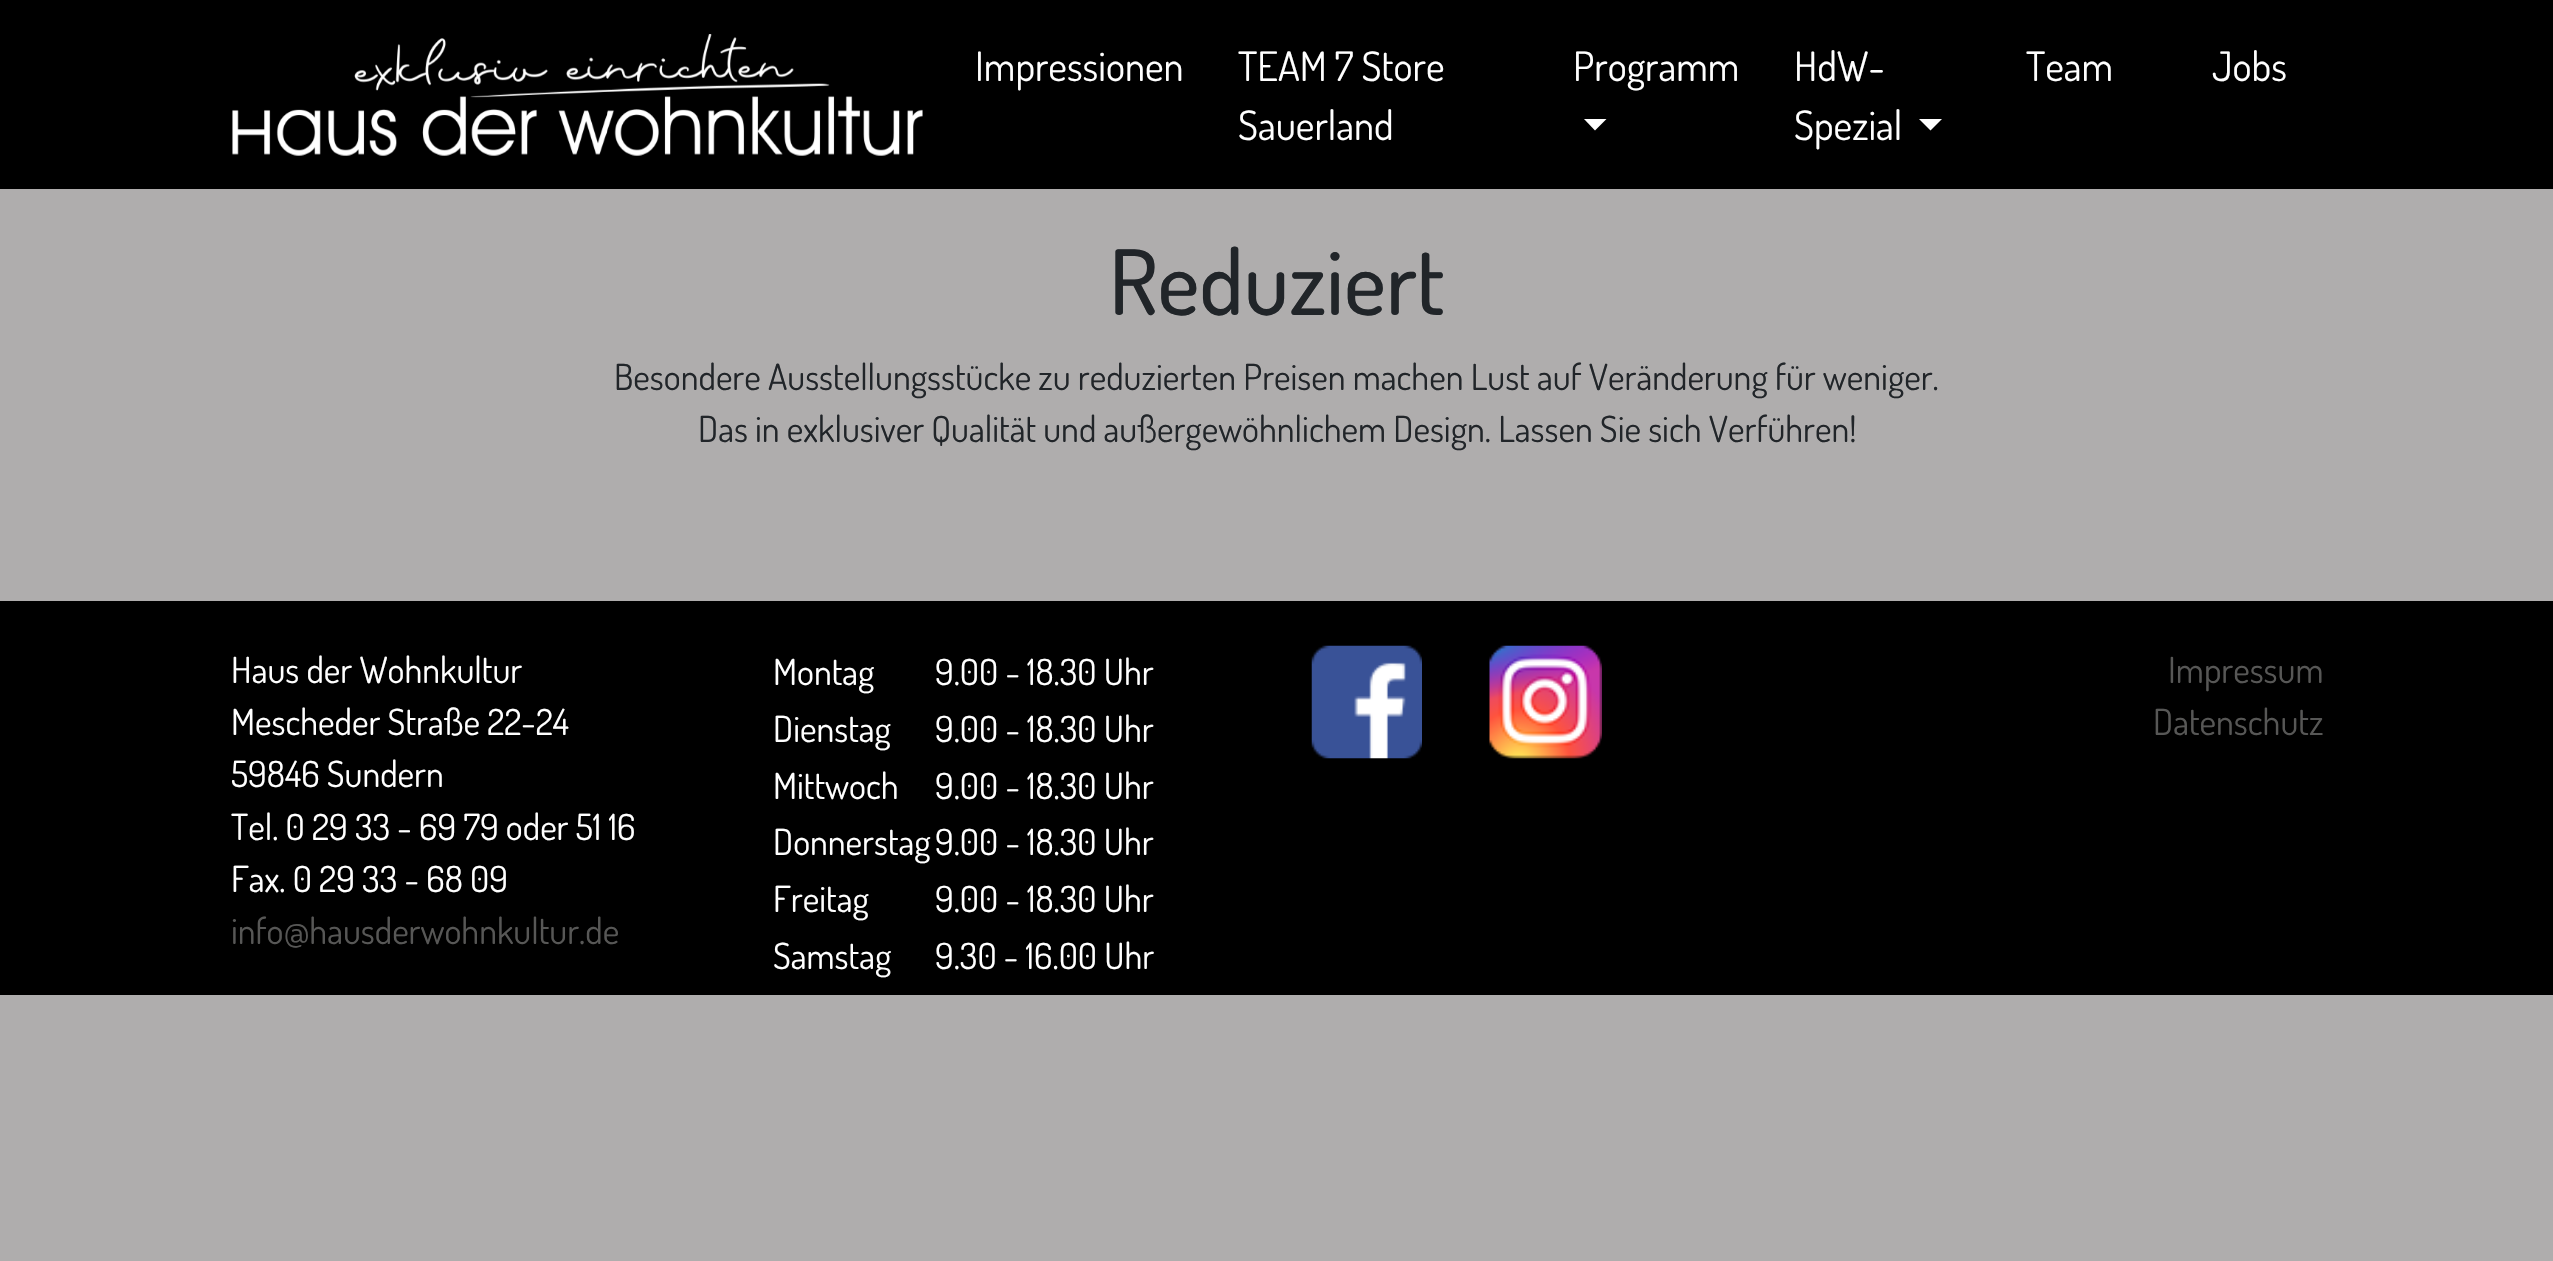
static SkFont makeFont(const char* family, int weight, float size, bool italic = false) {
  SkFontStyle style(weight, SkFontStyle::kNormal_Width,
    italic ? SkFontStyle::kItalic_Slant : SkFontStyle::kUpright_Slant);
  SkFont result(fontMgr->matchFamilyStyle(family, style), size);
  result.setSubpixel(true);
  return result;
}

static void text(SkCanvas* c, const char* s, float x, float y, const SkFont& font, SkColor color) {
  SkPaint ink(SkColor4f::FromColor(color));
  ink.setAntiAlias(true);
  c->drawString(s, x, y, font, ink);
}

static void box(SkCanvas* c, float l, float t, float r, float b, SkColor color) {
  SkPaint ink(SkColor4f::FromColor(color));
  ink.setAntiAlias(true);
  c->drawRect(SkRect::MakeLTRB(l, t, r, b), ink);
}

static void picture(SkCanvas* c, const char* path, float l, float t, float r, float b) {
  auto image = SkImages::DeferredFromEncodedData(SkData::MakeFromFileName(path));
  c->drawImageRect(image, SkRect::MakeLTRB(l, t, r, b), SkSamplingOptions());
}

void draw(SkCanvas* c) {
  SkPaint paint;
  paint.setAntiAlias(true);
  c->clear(0xffafadad);
  box(c, 0, 0, 2553, 189, 0xff000000);
  picture(c, "img_01.png", 232, 34, 923, 156);
  SkFont face1 = makeFont("Dosis", 400, 40.5f);
  text(c, "Impressionen", 975, 81, face1, 0xffffffff);
  text(c, "TEAM 7 Store", 1238, 81, face1, 0xffffffff);
  text(c, "Sauerland", 1238, 140, face1, 0xffffffff);
  text(c, "Programm", 1573, 81, face1, 0xffffffff);
  paint.setColor(0xffffffff);
  c->drawPath(SkPathBuilder().moveTo(1584, 119).lineTo(1606.5f, 119).lineTo(1595, 130.5f).close().detach(), paint);
  text(c, "HdW-", 1794, 81, face1, 0xffffffff);
  text(c, "Spezial", 1794, 140, face1, 0xffffffff);
  c->drawPath(SkPathBuilder().moveTo(1919, 119).lineTo(1942, 119).lineTo(1930.5f, 130.5f).close().detach(), paint);
  text(c, "Team", 2026, 81, face1, 0xffffffff);
  text(c, "Jobs", 2212, 81, face1, 0xffffffff);
  SkFont face2 = makeFont("Dosis", 500, 90);
  text(c, "Reduziert", 1109, 315, face2, 0xff212529);
  SkFont face3 = makeFont("Dosis", 400, 36);
  text(c, "Besondere Ausstellungsstücke zu reduzierten Preisen machen Lust auf Veränderung für weniger.", 614, 390, face3, 0xff212529);
  text(c, "Das in exklusiver Qualität und außergewöhnlichem Design. Lassen Sie sich Verführen!", 698, 442, face3, 0xff212529);
  box(c, 0, 601, 2553, 995, 0xff000000);
  text(c, "Haus der Wohnkultur", 231, 683, face3, 0xffffffff);
  text(c, "Mescheder Straße 22-24", 231, 735, face3, 0xffffffff);
  text(c, "59846 Sundern", 231, 787, face3, 0xffffffff);
  text(c, "Tel. 0 29 33 - 69 79 oder 51 16", 231, 840, face3, 0xffffffff);
  text(c, "Fax. 0 29 33 - 68 09", 231, 892, face3, 0xffffffff);
  text(c, "info@hausderwohnkultur.de", 231, 944, face3, 0xff575756);
  text(c, "Montag", 773, 685, face3, 0xffffffff);
  text(c, "9.00 - 18.30 Uhr", 935, 685, face3, 0xffffffff);
  text(c, "Dienstag", 773, 742, face3, 0xffffffff);
  text(c, "9.00 - 18.30 Uhr", 935, 742, face3, 0xffffffff);
  text(c, "Mittwoch", 773, 799, face3, 0xffffffff);
  text(c, "9.00 - 18.30 Uhr", 935, 799, face3, 0xffffffff);
  text(c, "Donnerstag", 773, 855, face3, 0xffffffff);
  text(c, "9.00 - 18.30 Uhr", 935, 855, face3, 0xffffffff);
  text(c, "Freitag", 773, 912, face3, 0xffffffff);
  text(c, "9.00 - 18.30 Uhr", 935, 912, face3, 0xffffffff);
  text(c, "Samstag", 773, 969, face3, 0xffffffff);
  text(c, "9.30 - 16.00 Uhr", 935, 969, face3, 0xffffffff);
  picture(c, "img_02.png", 1311, 645, 1422, 759);
  picture(c, "img_03.png", 1489, 645, 1602, 759);
  text(c, "Impressum", 2168, 683, face3, 0xff575756);
  text(c, "Datenschutz", 2153, 735, face3, 0xff575756);
}
